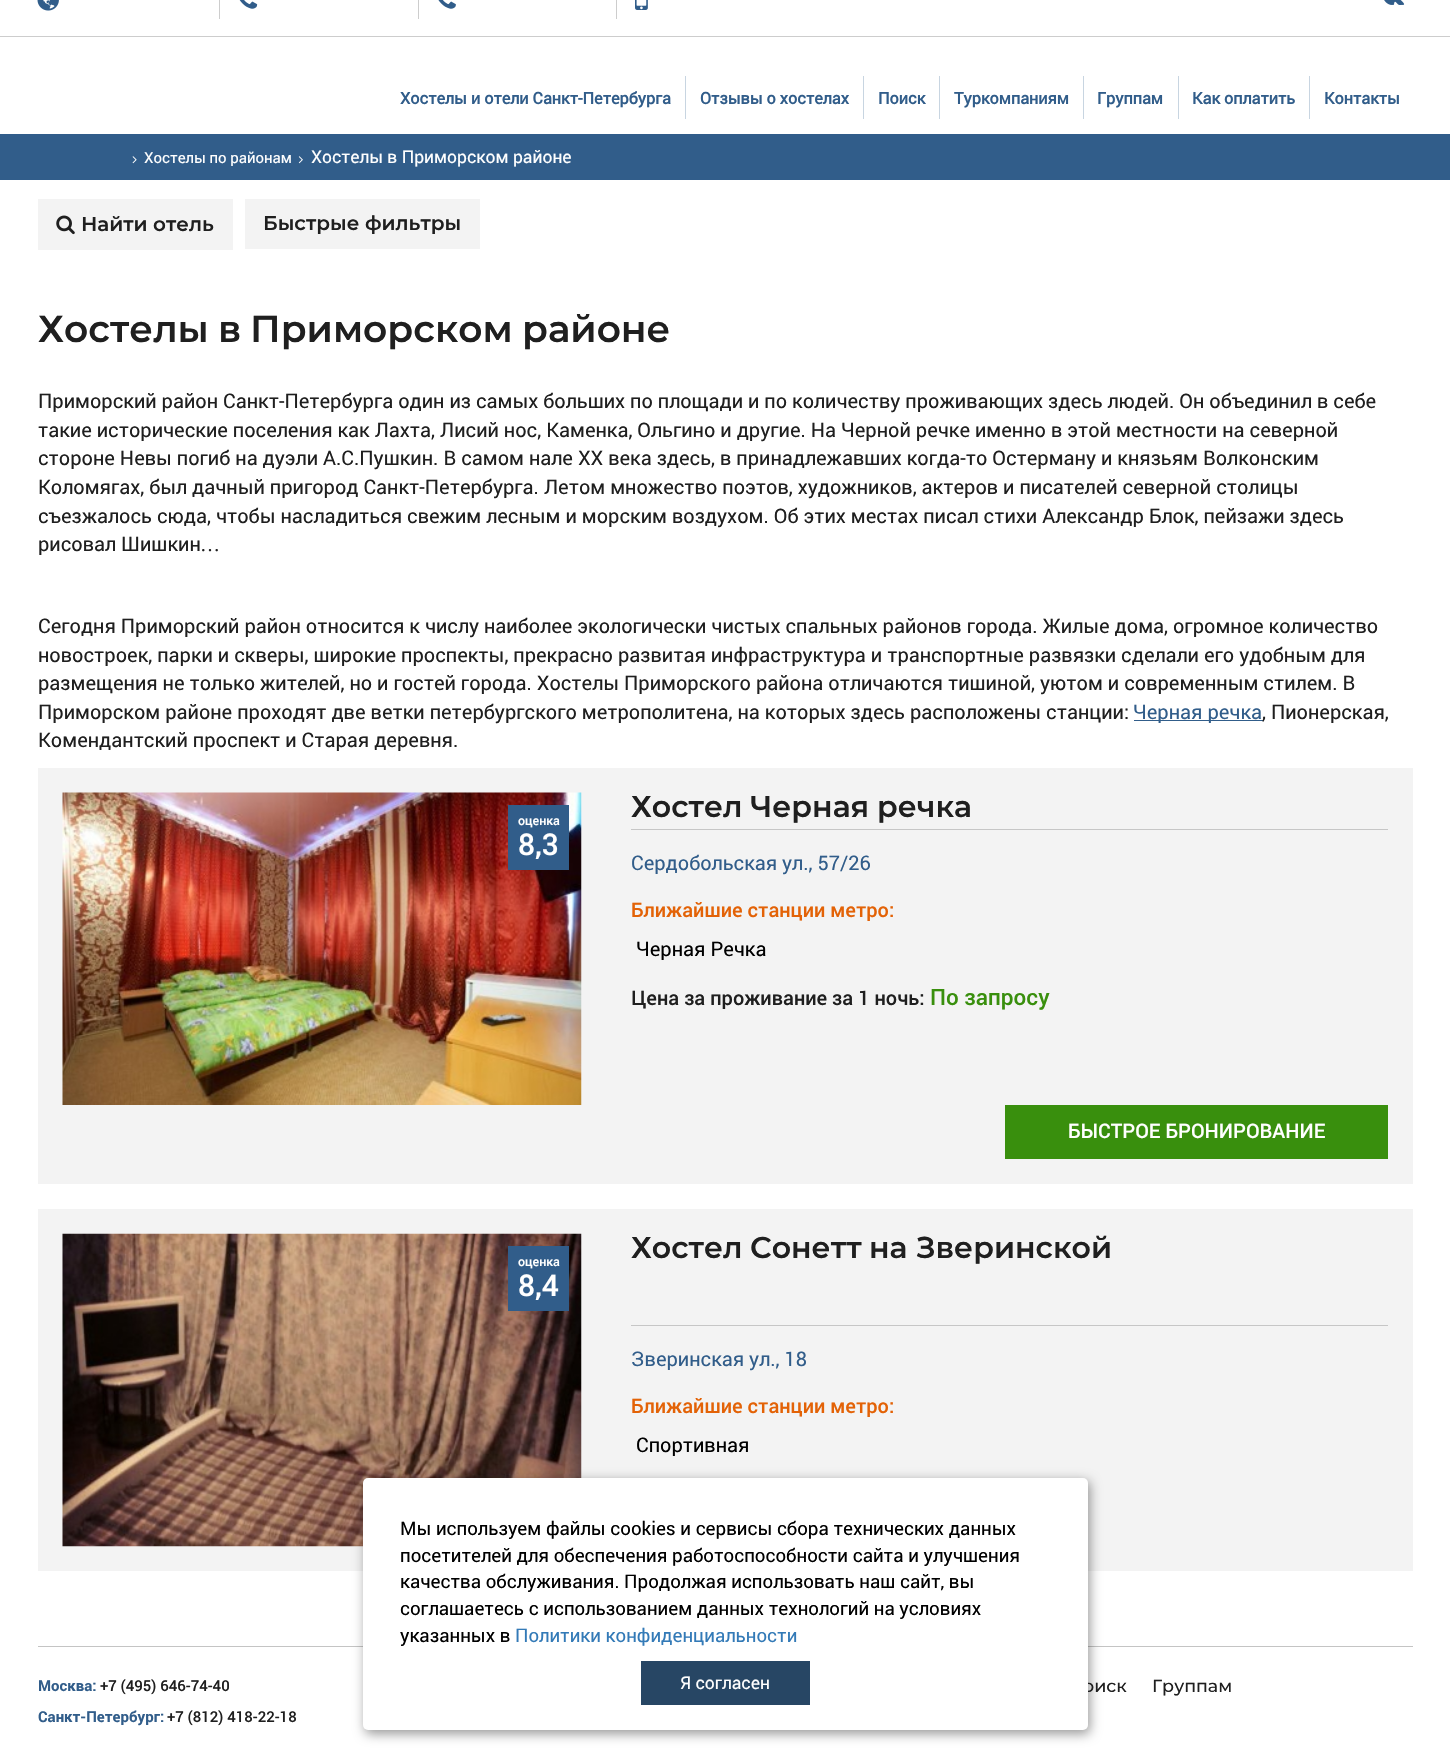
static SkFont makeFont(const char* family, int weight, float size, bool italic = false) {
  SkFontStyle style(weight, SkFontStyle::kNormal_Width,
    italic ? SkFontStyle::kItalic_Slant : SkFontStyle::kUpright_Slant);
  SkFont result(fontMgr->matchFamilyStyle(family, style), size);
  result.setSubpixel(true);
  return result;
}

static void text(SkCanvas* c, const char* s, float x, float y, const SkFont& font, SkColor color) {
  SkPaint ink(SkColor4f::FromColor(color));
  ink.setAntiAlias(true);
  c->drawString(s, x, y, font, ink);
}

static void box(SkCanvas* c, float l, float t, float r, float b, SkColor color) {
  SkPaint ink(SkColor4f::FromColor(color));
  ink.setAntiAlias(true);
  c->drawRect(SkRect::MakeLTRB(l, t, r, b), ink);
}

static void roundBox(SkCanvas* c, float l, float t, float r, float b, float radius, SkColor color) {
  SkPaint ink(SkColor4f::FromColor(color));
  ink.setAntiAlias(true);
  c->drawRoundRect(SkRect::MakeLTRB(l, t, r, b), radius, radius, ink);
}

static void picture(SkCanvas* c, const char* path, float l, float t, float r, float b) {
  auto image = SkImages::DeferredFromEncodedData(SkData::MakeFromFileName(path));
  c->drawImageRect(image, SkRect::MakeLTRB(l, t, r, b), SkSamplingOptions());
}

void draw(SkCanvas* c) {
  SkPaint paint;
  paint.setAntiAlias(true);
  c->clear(0xffffffff);
  box(c, 0, 36, 1450, 37, 0xffcdcdcd);
  picture(c, "img_01.png", 37, 0, 59, 11);
  box(c, 219, 0, 220, 19, 0xffcdcdcd);
  picture(c, "img_02.png", 239, 0, 258, 9);
  box(c, 418, 0, 419, 19, 0xffcdcdcd);
  picture(c, "img_03.png", 438, 0, 456, 9);
  box(c, 616, 0, 617, 19, 0xffcdcdcd);
  picture(c, "img_04.png", 635, 0, 648, 10);
  picture(c, "img_05.png", 1384, 0, 1405, 5);
  box(c, 685, 76, 686, 119, 0xffc8d5e1);
  SkFont face1 = makeFont("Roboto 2", 700, 16.25f);
  text(c, "Хостелы и отели Санкт-Петербурга", 400, 104, face1, 0xff315d8a);
  box(c, 863, 76, 864, 119, 0xffc8d5e1);
  text(c, "Отзывы о хостелах", 700, 104, face1, 0xff315d8a);
  box(c, 939, 76, 940, 119, 0xffc8d5e1);
  text(c, "Поиск", 878, 104, face1, 0xff315d8a);
  box(c, 1083, 76, 1084, 119, 0xffc8d5e1);
  text(c, "Туркомпаниям", 954, 104, face1, 0xff315d8a);
  box(c, 1178, 76, 1179, 119, 0xffc8d5e1);
  text(c, "Группам", 1097, 104, face1, 0xff315d8a);
  box(c, 1309, 76, 1310, 119, 0xffc8d5e1);
  text(c, "Как оплатить", 1192, 104, face1, 0xff315d8a);
  text(c, "Контакты", 1324, 104, face1, 0xff315d8a);
  box(c, 0, 134, 1450, 180, 0xff315d8a);
  picture(c, "img_06.png", 132, 156, 137, 164);
  SkFont face2 = makeFont("Roboto", 400, 15);
  text(c, "Хостелы по районам", 144, 163, face2, 0xffffffff);
  picture(c, "img_07.png", 298, 156, 303, 164);
  SkFont face3 = makeFont("Roboto", 400, 17.5f);
  text(c, "Хостелы в Приморском районе", 311, 163, face3, 0xffffffff);
  box(c, 38, 199, 233, 250, 0xfff3f3f3);
  picture(c, "img_08.png", 56, 215, 75, 235);
  SkFont face4 = makeFont("Montserrat", 600, 20);
  text(c, "Найти", 81, 231, face4, 0xff1f1f1f);
  text(c, "отель", 153, 231, face4, 0xff1f1f1f);
  box(c, 245, 199, 480, 249, 0xfff3f3f3);
  text(c, "Быстрые", 263, 230, face4, 0xff1f1f1f);
  text(c, "фильтры", 365, 230, face4, 0xff1f1f1f);
  SkFont face5 = makeFont("Montserrat", 600, 37.5f);
  text(c, "Хостелы", 38, 342, face5, 0xff1f1f1f);
  text(c, "в", 218, 342, face5, 0xff1f1f1f);
  text(c, "Приморском", 250, 342, face5, 0xff1f1f1f);
  text(c, "районе", 522, 342, face5, 0xff1f1f1f);
  SkFont face6 = makeFont("Roboto", 400, 20);
  text(c, "Приморский район Санкт-Петербурга один из самых больших по площади и по количеству проживающих здесь людей. Он объединил в себе", 38, 408, face6, 0xff1f1f1f);
  text(c, "такие исторические поселения как Лахта, Лисий нос, Каменка, Ольгино и другие. На Черной речке именно в этой местности на северной", 38, 437, face6, 0xff1f1f1f);
  text(c, "стороне Невы погиб на дуэли А.С.Пушкин. В самом нале ХХ века здесь, в принадлежавших когда-то Остерману и князьям Волконским", 38, 465, face6, 0xff1f1f1f);
  text(c, "Коломягах, был дачный пригород Санкт-Петербурга. Летом множество поэтов, художников, актеров и писателей северной столицы", 38, 494, face6, 0xff1f1f1f);
  text(c, "съезжалось сюда, чтобы насладиться свежим лесным и морским воздухом. Об этих местах писал стихи Александр Блок, пейзажи здесь", 38, 523, face6, 0xff1f1f1f);
  text(c, "рисовал Шишкин", 38, 551, face6, 0xff1f1f1f);
  SkFont face7 = makeFont("Liberation Serif", 400, 20);
  text(c, "…", 200, 551, face7, 0xff1f1f1f);
  text(c, "Сегодня Приморский район относится к числу наиболее экологически чистых спальных районов города. Жилые дома, огромное количество", 38, 633, face6, 0xff1f1f1f);
  text(c, "новостроек, парки и скверы, широкие проспекты, прекрасно развитая инфраструктура и транспортные развязки сделали его удобным для", 38, 662, face6, 0xff1f1f1f);
  text(c, "размещения не только жителей, но и гостей города. Хостелы Приморского района отличаются тишиной, уютом и современным стилем. В", 38, 690, face6, 0xff1f1f1f);
  text(c, "Приморском районе проходят две ветки петербургского метрополитена, на которых здесь расположены станции:", 38, 719, face6, 0xff1f1f1f);
  box(c, 1134, 720, 1263, 721, 0xff315d8a);
  text(c, "Черная речка", 1133, 719, face6, 0xff315d8a);
  text(c, ", Пионерская,", 1262, 719, face6, 0xff1f1f1f);
  text(c, "Комендантский проспект и Старая деревня.", 38, 747, face6, 0xff1f1f1f);
  box(c, 38, 768, 1413, 1184, 0xfff3f3f3);
  picture(c, "img_09.png", 62, 792, 582, 1105);
  box(c, 508, 805, 569, 870, 0xff315d8a);
  SkFont face8 = makeFont("Roboto", 500, 12.5f);
  text(c, "оценка", 518, 825, face8, 0xffffffff);
  SkFont face9 = makeFont("Roboto", 500, 30);
  text(c, "8,3", 518, 855, face9, 0xffffffff);
  box(c, 631, 829, 1388, 830, 0xffc6c6c6);
  SkFont face10 = makeFont("Montserrat", 600, 30);
  text(c, "Хостел", 631, 817, face10, 0xff1f1f1f);
  text(c, "Черная", 750, 817, face10, 0xff1f1f1f);
  text(c, "речка", 877, 817, face10, 0xff1f1f1f);
  text(c, "Сердобольская ул., 57/26", 631, 870, face6, 0xff315d8a);
  SkFont face11 = makeFont("Roboto", 500, 20);
  text(c, "Ближайшие станции метро:", 631, 917, face11, 0xffe36206);
  text(c, "Черная Речка", 636, 956, face6, 0xff000000);
  text(c, "Цена за проживание за 1 ночь:", 631, 1005, face11, 0xff1f1f1f);
  SkFont face12 = makeFont("Roboto", 500, 22.5f);
  text(c, "По запросу", 930, 1005, face12, 0xff398f0d);
  box(c, 1005, 1105, 1388, 1159, 0xff398f0d);
  text(c, "БЫСТРОЕ БРОНИРОВАНИЕ", 1068, 1138, face11, 0xffffffff);
  box(c, 38, 1209, 1413, 1571, 0xfff3f3f3);
  picture(c, "img_10.png", 62, 1233, 582, 1547);
  box(c, 508, 1246, 569, 1311, 0xff315d8a);
  text(c, "оценка", 518, 1266, face8, 0xffffffff);
  text(c, "8,4", 518, 1296, face9, 0xffffffff);
  box(c, 631, 1325, 1388, 1326, 0xffc6c6c6);
  text(c, "Хостел", 631, 1258, face10, 0xff1f1f1f);
  text(c, "Сонетт", 750, 1258, face10, 0xff1f1f1f);
  text(c, "на", 869, 1258, face10, 0xff1f1f1f);
  text(c, "Зверинской", 916, 1258, face10, 0xff1f1f1f);
  text(c, "Зверинская ул., 18", 631, 1366, face6, 0xff315d8a);
  text(c, "Ближайшие станции метро:", 631, 1413, face11, 0xffe36206);
  text(c, "Спортивная", 636, 1452, face6, 0xff000000);
  box(c, 38, 1646, 1413, 1647, 0xffc4c4c4);
  SkFont face13 = makeFont("Roboto", 700, 15);
  text(c, "Москва:", 38, 1691, face13, 0xff315d8a);
  SkFont face14 = makeFont("Roboto", 500, 15);
  text(c, "+7 (495) 646-74-40", 100, 1691, face14, 0xff1f1f1f);
  paint.setColor(0x66000000);
  paint.setMaskFilter(SkMaskFilter::MakeBlur(kNormal_SkBlurStyle, 6));
  c->drawRoundRect(SkRect::MakeLTRB(365, 1481, 1090, 1734), 5, 5, paint);
  paint.setMaskFilter(nullptr);
  SkFont face15 = makeFont("Montserrat", 500, 17.5f);
  text(c, "оиск", 1083, 1692, face15, 0xff1f1f1f);
  roundBox(c, 363, 1478, 1088, 1730, 5, 0xffffffff);
  SkFont face16 = makeFont("Roboto", 400, 18.75f);
  text(c, "Мы используем файлы cookies и сервисы сбора технических данных", 400, 1535, face16, 0xff000000);
  text(c, "посетителей для обеспечения работоспособности сайта и улучшения", 400, 1562, face16, 0xff000000);
  text(c, "качества обслуживания. Продолжая использовать наш сайт, вы", 400, 1588, face16, 0xff000000);
  text(c, "соглашаетесь с использованием данных технологий на условиях", 400, 1615, face16, 0xff000000);
  text(c, "указанных в", 400, 1642, face16, 0xff000000);
  text(c, "Политики конфиденциальности", 515, 1642, face16, 0xff337ab7);
  box(c, 641, 1661, 810, 1705, 0xff274664);
  text(c, "Я согласен", 680, 1689, face3, 0xffffffff);
  text(c, "Санкт-Петербург:", 38, 1722, face13, 0xff315d8a);
  text(c, "+7 (812) 418-22-18", 167, 1722, face14, 0xff1f1f1f);
  text(c, "Группам", 1152, 1692, face15, 0xff1f1f1f);
}
